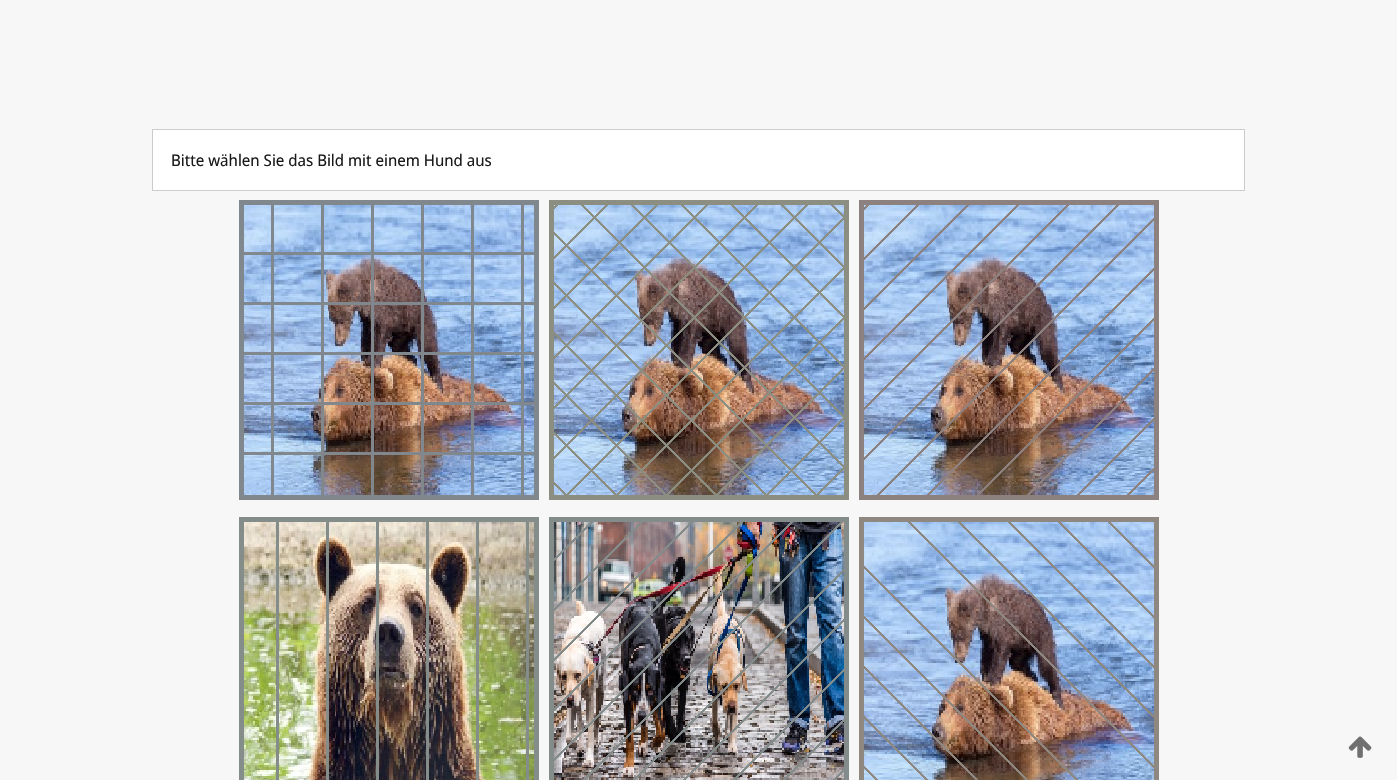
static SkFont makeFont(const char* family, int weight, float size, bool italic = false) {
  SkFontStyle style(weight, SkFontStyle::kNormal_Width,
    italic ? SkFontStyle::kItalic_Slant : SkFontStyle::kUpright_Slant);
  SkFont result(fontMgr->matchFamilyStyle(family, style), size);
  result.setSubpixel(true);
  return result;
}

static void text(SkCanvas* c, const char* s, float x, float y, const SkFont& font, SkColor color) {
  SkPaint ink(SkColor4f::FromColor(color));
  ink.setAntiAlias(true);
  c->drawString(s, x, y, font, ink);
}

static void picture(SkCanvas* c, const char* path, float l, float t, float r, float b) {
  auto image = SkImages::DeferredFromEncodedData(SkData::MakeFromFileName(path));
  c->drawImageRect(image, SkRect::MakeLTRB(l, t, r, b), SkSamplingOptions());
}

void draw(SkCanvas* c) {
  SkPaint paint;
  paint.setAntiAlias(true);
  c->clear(0xfff7f7f7);
  paint.setColor(0xffffffff);
  c->drawRect(SkRect::MakeLTRB(152.5f, 129.5f, 1244.5f, 190.5f), paint);
  paint.setStyle(SkPaint::kStroke_Style);
  paint.setStrokeWidth(1);
  paint.setColor(0xffcccccc);
  c->drawRect(SkRect::MakeLTRB(152.5f, 129.5f, 1244.5f, 190.5f), paint);
  SkFont face1 = makeFont("Noto Sans Display", 400, 16);
  text(c, "Bitte wählen Sie das Bild mit einem Hund aus", 171, 166, face1, 0xff1a1a1a);
  picture(c, "img_01.png", 239, 200, 539, 500);
  picture(c, "img_02.png", 549, 200, 849, 500);
  picture(c, "img_03.png", 859, 200, 1159, 500);
  picture(c, "img_04.png", 239, 517, 539, 780);
  picture(c, "img_05.png", 549, 517, 849, 780);
  picture(c, "img_06.png", 859, 517, 1159, 780);
  picture(c, "img_07.png", 1348, 736, 1372, 758);
}
